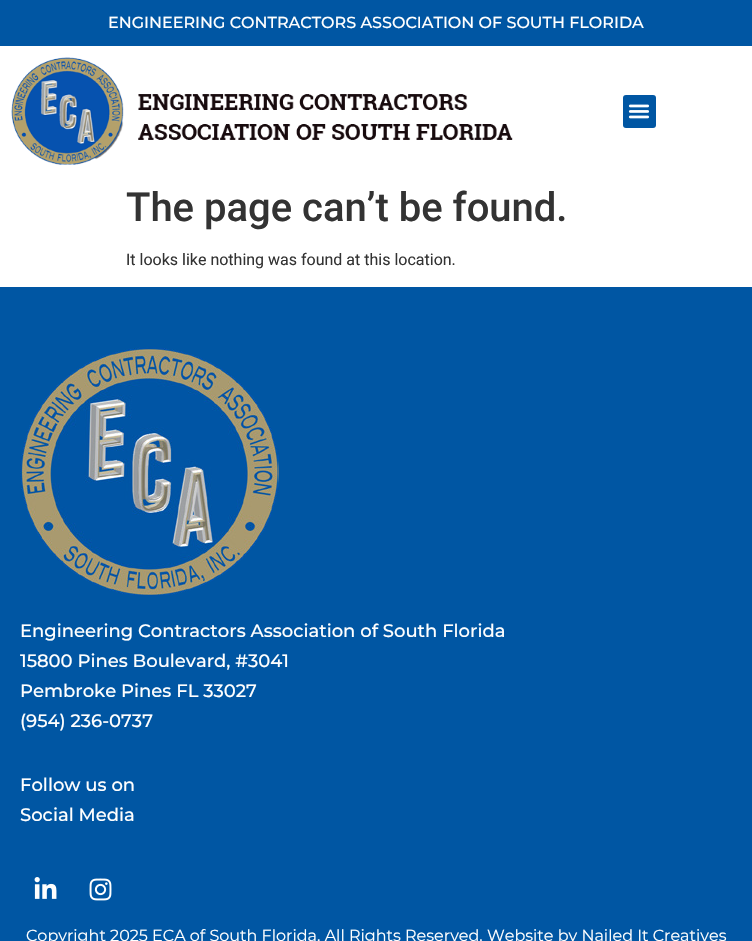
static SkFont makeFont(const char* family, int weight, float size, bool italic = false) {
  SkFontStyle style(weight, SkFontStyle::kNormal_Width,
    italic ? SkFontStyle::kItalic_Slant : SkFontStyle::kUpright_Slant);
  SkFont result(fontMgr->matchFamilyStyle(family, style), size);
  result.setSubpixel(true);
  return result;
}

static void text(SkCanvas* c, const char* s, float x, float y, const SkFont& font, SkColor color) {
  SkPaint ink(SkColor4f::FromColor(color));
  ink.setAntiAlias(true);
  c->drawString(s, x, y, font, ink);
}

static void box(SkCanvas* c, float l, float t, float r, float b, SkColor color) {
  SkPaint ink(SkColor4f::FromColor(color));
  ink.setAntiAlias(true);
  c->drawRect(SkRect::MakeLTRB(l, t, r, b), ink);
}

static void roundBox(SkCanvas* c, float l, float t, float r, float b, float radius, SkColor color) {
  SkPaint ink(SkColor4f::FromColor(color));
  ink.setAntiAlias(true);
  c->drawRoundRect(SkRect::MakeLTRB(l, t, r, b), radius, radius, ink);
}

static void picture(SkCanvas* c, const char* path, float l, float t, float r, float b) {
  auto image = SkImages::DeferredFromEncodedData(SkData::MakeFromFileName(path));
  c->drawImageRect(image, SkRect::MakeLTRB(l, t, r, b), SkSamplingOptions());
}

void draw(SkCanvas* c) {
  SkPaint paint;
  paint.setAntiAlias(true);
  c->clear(0xffffffff);
  box(c, 0, 0, 752, 46, 0xff0056a3);
  SkFont face1 = makeFont("Montserrat", 500, 16);
  text(c, "ENGINEERING CONTRACTORS ASSOCIATION OF SOUTH FLORIDA", 108, 28, face1, 0xffffffff);
  picture(c, "img_01.png", 11, 57, 513, 165);
  roundBox(c, 623, 95, 656, 128, 3, 0xff0056a3);
  picture(c, "img_02.png", 628, 104, 650, 119);
  SkFont face2 = makeFont("Roboto", 500, 40);
  text(c, "The page can’t be found.", 126, 221, face2, 0xff333333);
  SkFont face3 = makeFont("Roboto", 400, 16);
  text(c, "It looks like nothing was found at this location.", 126, 265, face3, 0xff333333);
  box(c, 0, 287, 752, 941, 0xff0056a3);
  picture(c, "img_03.png", 20, 347, 279, 596);
  SkFont face4 = makeFont("Montserrat", 500, 18);
  text(c, "Engineering Contractors Association of South Florida", 20, 637, face4, 0xffffffff);
  text(c, "15800 Pines Boulevard, #3041", 20, 667, face4, 0xffffffff);
  text(c, "Pembroke Pines FL 33027", 20, 697, face4, 0xffffffff);
  text(c, "(954) 236-0737", 20, 727, face4, 0xffffffff);
  text(c, "Follow us on", 20, 791, face4, 0xffffffff);
  text(c, "Social Media", 20, 821, face4, 0xffffffff);
  picture(c, "img_04.png", 34, 877, 57, 899);
  picture(c, "img_05.png", 89, 878, 112, 901);
  SkFont face5 = makeFont("Montserrat", 400, 16);
  text(c, "Copyright 2025 ECA of South Florida. All Rights Reserved. Website by Nailed It Creatives", 26, 941, face5, 0xffffffff);
}
